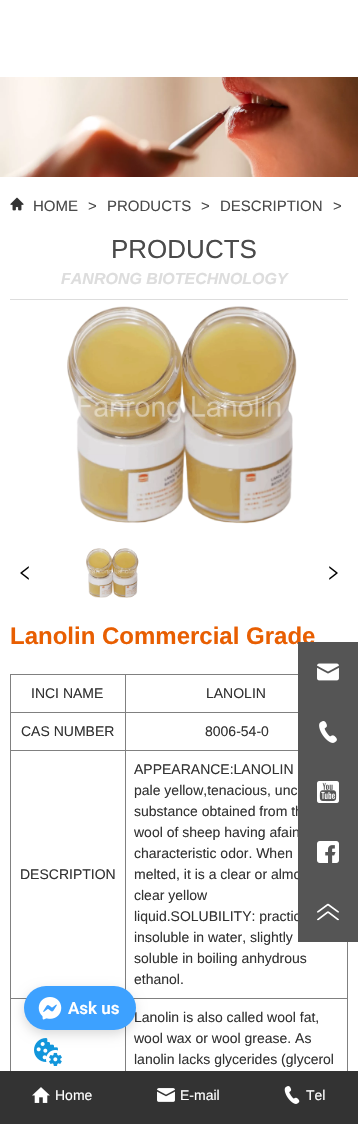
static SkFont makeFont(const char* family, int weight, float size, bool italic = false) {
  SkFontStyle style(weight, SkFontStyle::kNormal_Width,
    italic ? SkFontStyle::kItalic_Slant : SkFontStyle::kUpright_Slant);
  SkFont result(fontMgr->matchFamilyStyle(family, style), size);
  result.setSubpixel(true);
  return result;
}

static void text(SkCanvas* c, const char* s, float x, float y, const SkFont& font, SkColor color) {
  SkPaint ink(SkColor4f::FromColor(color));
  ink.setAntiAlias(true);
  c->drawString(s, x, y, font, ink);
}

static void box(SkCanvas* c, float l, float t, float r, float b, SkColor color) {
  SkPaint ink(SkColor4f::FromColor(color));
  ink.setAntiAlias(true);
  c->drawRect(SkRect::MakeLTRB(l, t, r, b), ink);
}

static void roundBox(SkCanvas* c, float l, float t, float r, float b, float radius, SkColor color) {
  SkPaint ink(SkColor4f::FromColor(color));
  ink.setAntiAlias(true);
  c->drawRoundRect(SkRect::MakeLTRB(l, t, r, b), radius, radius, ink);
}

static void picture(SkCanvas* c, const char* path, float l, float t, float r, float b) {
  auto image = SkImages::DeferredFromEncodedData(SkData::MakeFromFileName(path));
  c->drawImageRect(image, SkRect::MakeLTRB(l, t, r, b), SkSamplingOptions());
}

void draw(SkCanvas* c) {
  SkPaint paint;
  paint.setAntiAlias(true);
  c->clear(0xffffffff);
  picture(c, "img_01.png", 0, 77, 358, 177);
  picture(c, "img_02.png", 10, 197, 24, 211);
  SkFont face1 = makeFont("Liberation Sans", 400, 15);
  text(c, "HOME", 33, 211, face1, 0xff4a4a4a);
  text(c, ">", 88, 211, face1, 0xff4a4a4a);
  text(c, "PRODUCTS", 107, 211, face1, 0xff4a4a4a);
  text(c, ">", 201, 211, face1, 0xff4a4a4a);
  text(c, "DESCRIPTION", 220, 211, face1, 0xff4a4a4a);
  text(c, ">", 333, 211, face1, 0xff4a4a4a);
  SkFont face2 = makeFont("Liberation Sans", 400, 26);
  text(c, "PRODUCTS", 111, 258, face2, 0xff4a4a4a);
  SkFont face3 = makeFont("Liberation Sans", 700, 16, true);
  text(c, "FANRONG BIOTECHNOLOGY", 61, 284, face3, 0xffdddddd);
  box(c, 10, 299, 348, 300, 0xffdddddd);
  picture(c, "img_03.png", 67, 306, 297, 524);
  picture(c, "img_04.png", 20, 566, 29, 580);
  picture(c, "img_05.png", 86, 548, 139, 598);
  picture(c, "img_06.png", 329, 566, 338, 580);
  SkFont face4 = makeFont("Liberation Sans", 700, 24);
  text(c, "Lanolin Commercial Grade", 10, 644, face4, 0xffe85e01);
  box(c, 10, 674, 298, 675, 0xff808080);
  box(c, 347, 942, 348, 1071, 0xff808080);
  box(c, 10, 674, 11, 1071, 0xff808080);
  SkFont face5 = makeFont("Liberation Sans", 400, 14);
  text(c, "INCI NAME", 31, 698, face5, 0xff333333);
  box(c, 125, 712, 298, 713, 0xff808080);
  box(c, 125, 750, 298, 751, 0xff808080);
  box(c, 125, 750, 126, 990, 0xff808080);
  box(c, 10, 750, 126, 751, 0xff808080);
  box(c, 125, 712, 126, 751, 0xff808080);
  box(c, 10, 712, 126, 713, 0xff808080);
  box(c, 125, 674, 126, 713, 0xff808080);
  text(c, "LANOLIN", 206, 698, face5, 0xff333333);
  text(c, "CAS NUMBER", 21, 736, face5, 0xff333333);
  text(c, "8006-54-0", 205, 736, face5, 0xff333333);
  text(c, "DESCRIPTION", 20, 879, face5, 0xff333333);
  text(c, "APPEARANCE:LANOLIN", 134, 774, face5, 0xff333333);
  text(c, "pale yellow,tenacious, unc", 134, 795, face5, 0xff333333);
  text(c, "substance obtained from th", 134, 816, face5, 0xff333333);
  text(c, "wool of sheep having afain", 134, 837, face5, 0xff333333);
  text(c, "characteristic odor. When", 134, 858, face5, 0xff333333);
  text(c, "melted, it is a clear or almo", 134, 879, face5, 0xff333333);
  text(c, "clear yellow", 134, 900, face5, 0xff333333);
  text(c, "liquid.SOLUBILITY: practic", 134, 921, face5, 0xff333333);
  text(c, "insoluble in water, slightly", 134, 942, face5, 0xff333333);
  text(c, "soluble in boiling anhydrous", 134, 963, face5, 0xff333333);
  text(c, "ethanol.", 134, 984, face5, 0xff333333);
  box(c, 10, 998, 27, 999, 0xff808080);
  box(c, 125, 998, 348, 999, 0xff808080);
  box(c, 125, 1026, 126, 1071, 0xff808080);
  text(c, "Lanolin is also called wool fat,", 134, 1022, face5, 0xff333333);
  text(c, "wool wax or wool grease. As", 134, 1043, face5, 0xff333333);
  text(c, "lanolin lacks glycerides (glycerol", 134, 1064, face5, 0xff333333);
  box(c, 298, 642, 358, 942, 0xff555555);
  picture(c, "img_07.png", 317, 663, 339, 681);
  picture(c, "img_08.png", 319, 721, 337, 743);
  picture(c, "img_09.png", 317, 781, 339, 803);
  picture(c, "img_10.png", 317, 841, 339, 863);
  picture(c, "img_11.png", 317, 903, 339, 921);
  box(c, 0, 1071, 358, 1124, 0xff333333);
  picture(c, "img_12.png", 32, 1087, 50, 1103);
  text(c, "Home", 55, 1100, face5, 0xffffffff);
  picture(c, "img_13.png", 157, 1088, 175, 1102);
  text(c, "E-mail", 180, 1100, face5, 0xffffffff);
  picture(c, "img_14.png", 284, 1086, 300, 1104);
  text(c, "Tel", 306, 1100, face5, 0xffffffff);
  paint.setColor(0x26000000);
  paint.setMaskFilter(SkMaskFilter::MakeBlur(kNormal_SkBlurStyle, 6));
  c->drawRoundRect(SkRect::MakeLTRB(24, 990, 135, 1034), 22, 22, paint);
  paint.setMaskFilter(nullptr);
  roundBox(c, 24, 986, 136, 1030, 22, 0xff3da1ff);
  picture(c, "img_15.png", 38, 997, 62, 1020);
  SkFont face6 = makeFont("Roboto", 600, 17);
  text(c, "Ask us", 68, 1014, face6, 0xffffffff);
  picture(c, "img_16.png", 34, 1038, 62, 1066);
}
